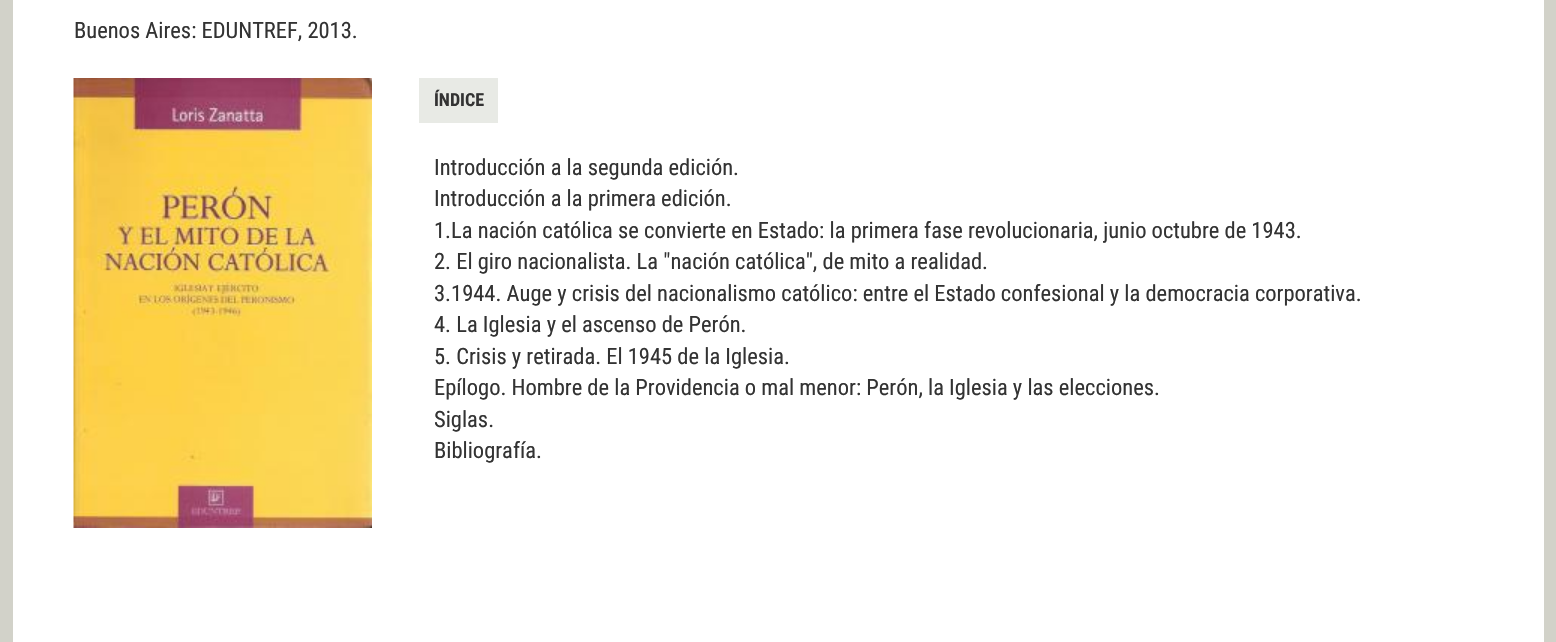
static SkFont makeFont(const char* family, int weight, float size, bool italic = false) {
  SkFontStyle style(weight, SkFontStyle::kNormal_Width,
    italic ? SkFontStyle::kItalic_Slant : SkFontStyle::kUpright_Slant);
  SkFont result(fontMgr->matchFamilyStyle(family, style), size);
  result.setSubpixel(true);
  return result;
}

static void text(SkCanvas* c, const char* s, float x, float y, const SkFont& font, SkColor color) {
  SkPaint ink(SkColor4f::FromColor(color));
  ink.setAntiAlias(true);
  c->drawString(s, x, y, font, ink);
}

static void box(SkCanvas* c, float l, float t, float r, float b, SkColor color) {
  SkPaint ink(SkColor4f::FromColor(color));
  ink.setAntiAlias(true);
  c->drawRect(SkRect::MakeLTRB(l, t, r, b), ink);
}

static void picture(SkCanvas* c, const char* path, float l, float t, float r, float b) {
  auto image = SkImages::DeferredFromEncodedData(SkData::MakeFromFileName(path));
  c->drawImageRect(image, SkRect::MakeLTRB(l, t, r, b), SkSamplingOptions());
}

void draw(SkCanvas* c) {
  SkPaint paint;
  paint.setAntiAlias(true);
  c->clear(0xffd2d2c9);
  box(c, 13, 0, 1544, 642, 0xffffffff);
  SkFont face1 = makeFont("Roboto Condensed", 400, 22.5f);
  text(c, "Buenos Aires: EDUNTREF, 2013.", 74, 38, face1, 0xff333333);
  picture(c, "img_01.png", 73, 78, 372, 528);
  box(c, 419, 78, 498, 123, 0xffe8eae5);
  SkFont face2 = makeFont("Roboto Condensed", 700, 18);
  text(c, "ÍNDICE", 434, 106, face2, 0xff333333);
  text(c, "Introducción a la segunda edición.", 434, 175, face1, 0xff333333);
  text(c, "Introducción a la primera edición.", 434, 206, face1, 0xff333333);
  text(c, "1.La nación católica se convierte en Estado: la primera fase revolucionaria, junio octubre de 1943.", 434, 238, face1, 0xff333333);
  text(c, "2. El giro nacionalista. La \"nación católica\", de mito a realidad.", 434, 269, face1, 0xff333333);
  text(c, "3.1944. Auge y crisis del nacionalismo católico: entre el Estado confesional y la democracia corporativa.", 434, 301, face1, 0xff333333);
  text(c, "4. La Iglesia y el ascenso de Perón.", 434, 332, face1, 0xff333333);
  text(c, "5. Crisis y retirada. El 1945 de la Iglesia.", 434, 364, face1, 0xff333333);
  text(c, "Epílogo. Hombre de la Providencia o mal menor: Perón, la Iglesia y las elecciones.", 434, 395, face1, 0xff333333);
  text(c, "Siglas.", 434, 427, face1, 0xff333333);
  text(c, "Bibliografía.", 434, 458, face1, 0xff333333);
}
